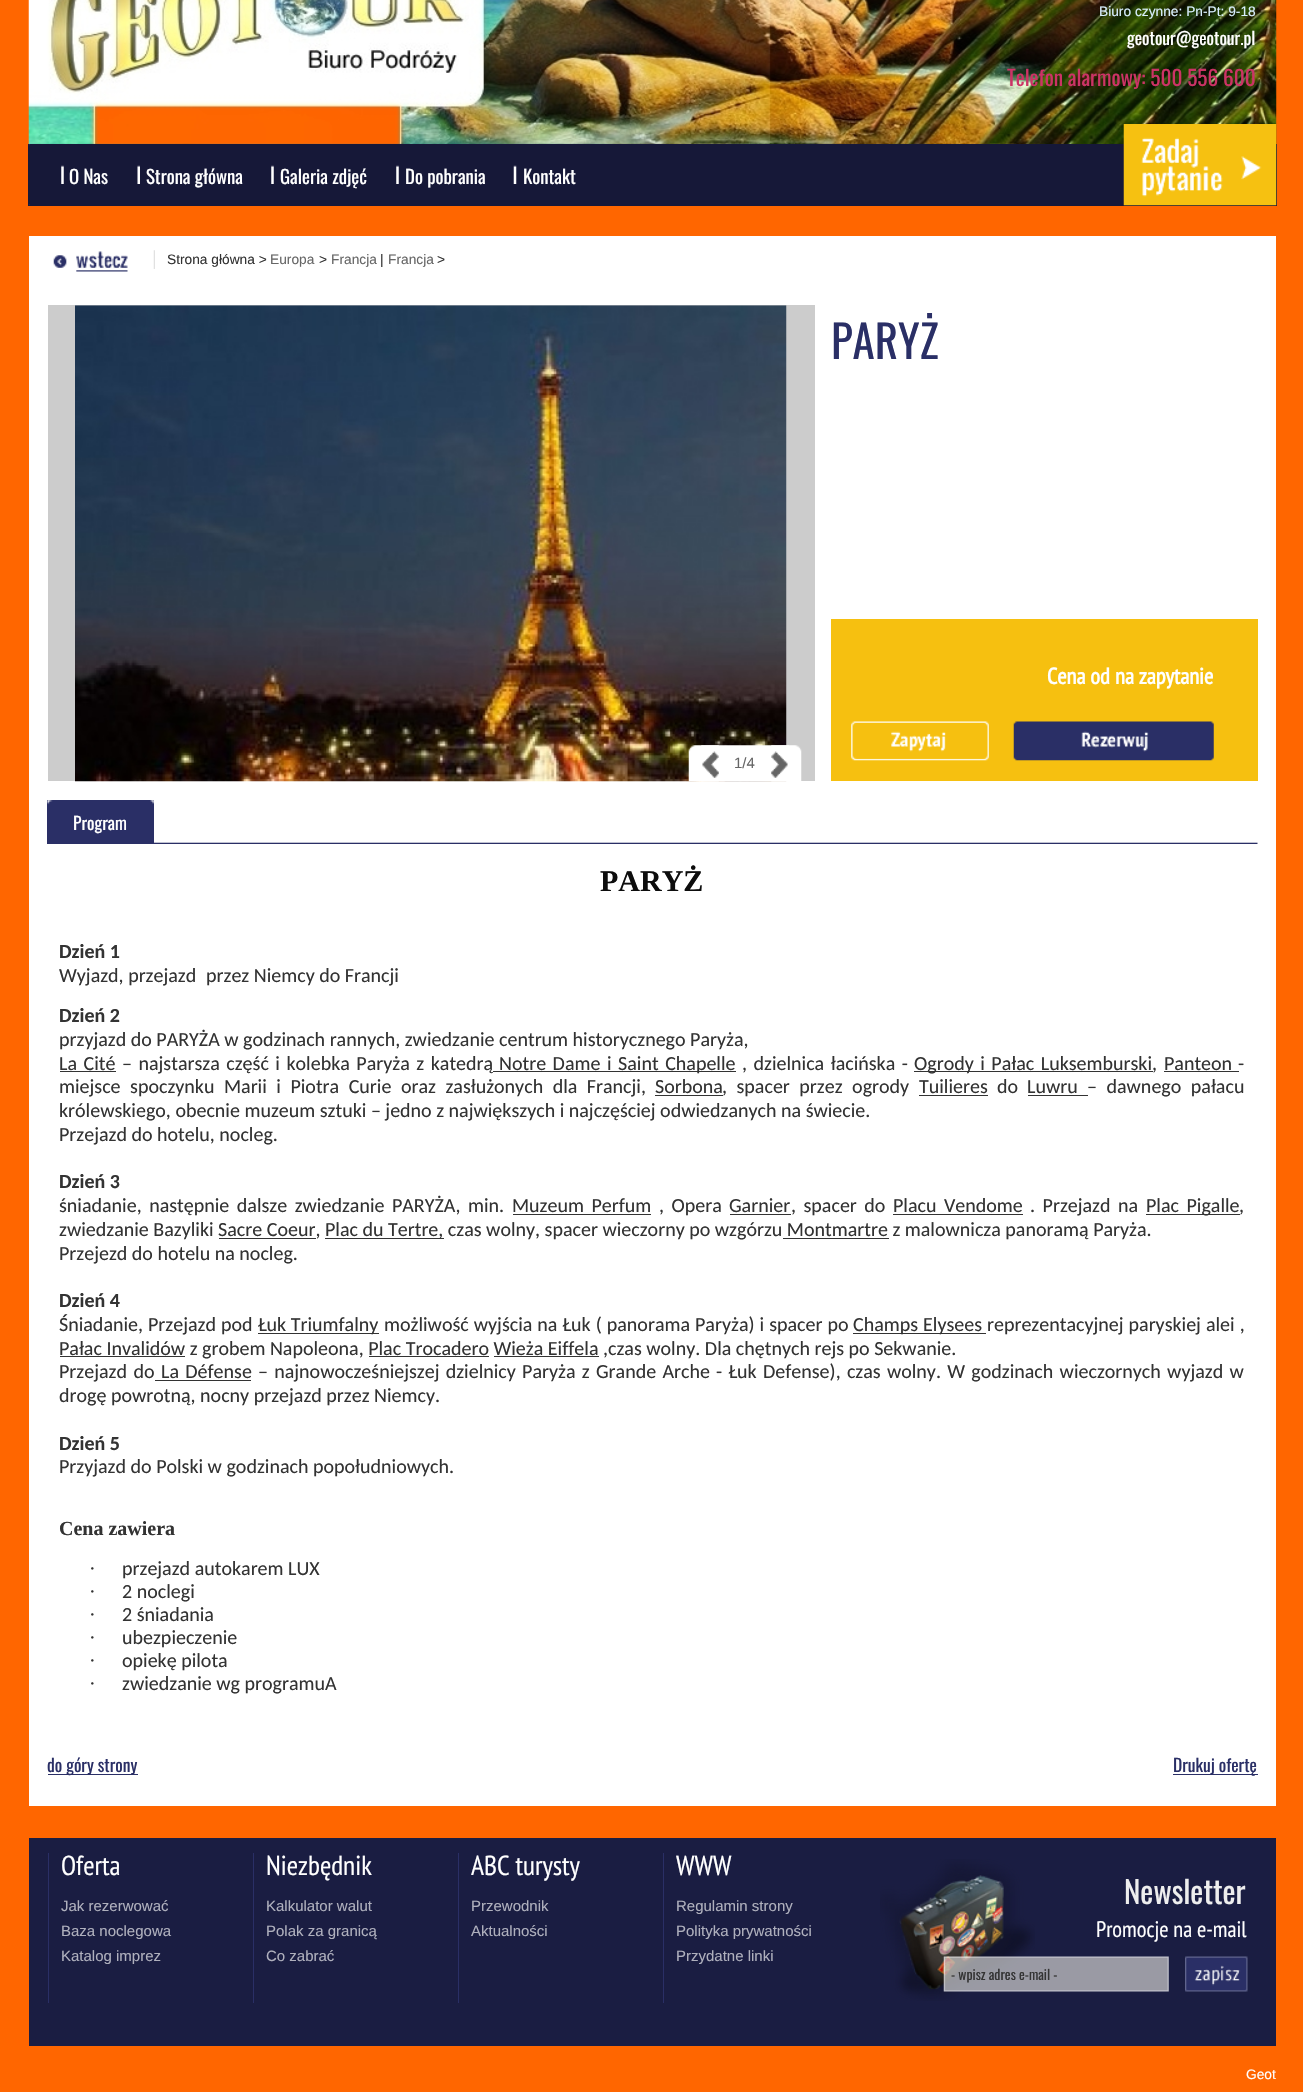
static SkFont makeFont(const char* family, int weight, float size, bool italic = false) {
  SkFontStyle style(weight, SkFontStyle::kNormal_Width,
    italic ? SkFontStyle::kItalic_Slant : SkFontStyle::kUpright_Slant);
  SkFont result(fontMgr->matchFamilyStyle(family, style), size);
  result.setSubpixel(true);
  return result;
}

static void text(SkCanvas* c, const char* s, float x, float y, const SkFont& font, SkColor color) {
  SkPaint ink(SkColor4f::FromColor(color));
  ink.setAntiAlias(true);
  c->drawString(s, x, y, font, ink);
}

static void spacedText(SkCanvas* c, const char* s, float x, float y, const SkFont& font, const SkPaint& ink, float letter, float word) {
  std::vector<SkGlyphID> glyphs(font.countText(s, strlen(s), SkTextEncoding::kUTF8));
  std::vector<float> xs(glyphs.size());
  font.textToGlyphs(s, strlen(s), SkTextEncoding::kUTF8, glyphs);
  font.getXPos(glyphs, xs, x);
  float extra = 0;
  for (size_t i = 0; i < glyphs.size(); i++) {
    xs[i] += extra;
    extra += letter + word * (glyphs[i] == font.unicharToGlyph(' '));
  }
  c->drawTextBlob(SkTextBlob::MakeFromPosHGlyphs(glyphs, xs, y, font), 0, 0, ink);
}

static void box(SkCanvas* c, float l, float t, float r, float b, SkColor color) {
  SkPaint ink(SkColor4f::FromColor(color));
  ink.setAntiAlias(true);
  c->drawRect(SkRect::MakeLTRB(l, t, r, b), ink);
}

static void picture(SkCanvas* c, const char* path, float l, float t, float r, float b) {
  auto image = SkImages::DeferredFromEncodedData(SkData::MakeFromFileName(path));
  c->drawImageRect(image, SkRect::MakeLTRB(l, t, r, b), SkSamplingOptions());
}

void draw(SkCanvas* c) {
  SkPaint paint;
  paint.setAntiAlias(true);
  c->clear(0xffff6600);
  picture(c, "img_01.png", 28, 0, 1277, 144);
  SkFont face1 = makeFont("Liberation Sans", 400, 13.75f);
  text(c, "Biuro czynne: Pn-Pt: 9-18", 1099, 16, face1, 0xffd8eefd);
  SkFont face2 = makeFont("Oswald", 400, 17.5f);
  text(c, "geotour@geotour.pl", 1127, 45, face2, 0xffffffff);
  SkFont face3 = makeFont("Oswald", 400, 21.25f);
  text(c, "Telefon alarmowy: 500 556 600", 1007, 86, face3, 0xffcc3366);
  box(c, 28, 144, 1277, 206, 0xff161838);
  picture(c, "img_02.png", 28, 144, 30, 206);
  picture(c, "img_03.png", 61, 165, 64, 184);
  SkFont face4 = makeFont("Oswald", 400, 18.75f);
  text(c, "O Nas", 69, 184, face4, 0xffffffff);
  picture(c, "img_04.png", 137, 165, 140, 184);
  text(c, "Strona główna", 146, 184, face4, 0xffffffff);
  picture(c, "img_03.png", 271, 165, 274, 184);
  text(c, "Galeria zdjęć", 280, 184, face4, 0xffffffff);
  picture(c, "img_03.png", 396, 165, 399, 184);
  text(c, "Do pobrania", 405, 184, face4, 0xffffffff);
  picture(c, "img_05.png", 513, 165, 517, 184);
  text(c, "Kontakt", 523, 184, face4, 0xffffffff);
  picture(c, "img_06.png", 1123, 124, 1277, 206);
  box(c, 29, 236, 1276, 1806, 0xffffffff);
  picture(c, "img_07.png", 53, 251, 128, 272);
  picture(c, "img_08.png", 153, 250, 155, 269);
  text(c, "Strona główna >", 167, 264, face1, 0xff333333);
  text(c, "Europa", 270, 264, face1, 0xff666666);
  text(c, ">", 319, 264, face1, 0xff333333);
  text(c, "Francja", 331, 264, face1, 0xff666666);
  text(c, "|", 380, 264, face1, 0xff333333);
  text(c, "Francja", 388, 264, face1, 0xff666666);
  text(c, ">", 437, 264, face1, 0xff333333);
  SkFont face5 = makeFont("Oswald", 400, 45);
  text(c, "PARYŻ", 831, 359, face5, 0xff2a2f66);
  box(c, 831, 619, 1258, 781, 0xfff6c010);
  SkFont face6 = makeFont("PT Sans Narrow", 700, 22.5f);
  text(c, "Cena od", 1047, 684, face6, 0xffffffff);
  text(c, "na zapytanie", 1115, 684, face6, 0xffffffff);
  picture(c, "img_09.png", 851, 721, 989, 761);
  picture(c, "img_10.png", 1013, 721, 1214, 761);
  box(c, 48, 305, 815, 781, 0xffcccccc);
  picture(c, "img_11.png", 75, 305, 787, 782);
  picture(c, "img_12.png", 688, 745, 802, 782);
  picture(c, "img_13.png", 701, 745, 719, 782);
  SkFont face7 = makeFont("Liberation Sans", 400, 15);
  text(c, "1/4", 734, 768, face7, 0xff666666);
  picture(c, "img_14.png", 771, 745, 789, 782);
  picture(c, "img_15.png", 154, 842, 1258, 844);
  box(c, 47, 800, 154, 844, 0xff2a2f66);
  picture(c, "img_16.png", 47, 800, 53, 805);
  picture(c, "img_17.png", 150, 800, 154, 804);
  text(c, "Program", 73, 830, face2, 0xffffffff);
  SkFont face8 = makeFont("Liberation Serif", 700, 30);
  text(c, "PARYŻ", 600, 891, face8, 0xff0d0d0d);
  SkFont face9 = makeFont("Carlito", 700, 20);
  text(c, "Dzień 1", 59, 958, face9, 0xff333333);
  SkFont face10 = makeFont("Carlito", 400, 20);
  text(c, "Wyjazd, przejazd", 59, 982, face10, 0xff333333);
  text(c, "przez Niemcy do Francji", 206, 982, face10, 0xff333333);
  text(c, "Dzień 2", 59, 1022, face9, 0xff333333);
  text(c, "przyjazd do PARYŻA w godzinach rannych, zwiedzanie centrum historycznego Paryża,", 59, 1046, face10, 0xff333333);
  paint.setColor(0xff333333);
  spacedText(c, "La Cité", 59, 1070, face10, paint, 0, 2);
  box(c, 60, 1071, 116, 1072, 0xff333333);
  spacedText(c, "– najstarsza część i kolebka Paryża z katedrą", 122, 1070, face10, paint, 0, 2);
  box(c, 493, 1071, 736, 1072, 0xff333333);
  spacedText(c, "Notre Dame i Saint Chapelle", 499, 1070, face10, paint, 0, 2);
  spacedText(c, ", dzielnica łacińska -", 742, 1070, face10, paint, 0, 2);
  box(c, 914, 1071, 1153, 1072, 0xff333333);
  spacedText(c, "Ogrody i Pałac Luksemburski", 914, 1070, face10, paint, 0, 2);
  text(c, "Panteon", 1164, 1070, face10, 0xff333333);
  text(c, "-", 1238, 1070, face10, 0xff333333);
  text(c, ",", 1152, 1070, face10, 0xff333333);
  box(c, 1164, 1071, 1239, 1072, 0xff333333);
  spacedText(c, "miejsce spoczynku Marii i Piotra Curie oraz zasłużonych dla Francji,", 59, 1093, face10, paint, 0, 5);
  text(c, "Sorbona", 655, 1093, face10, 0xff333333);
  spacedText(c, ", spacer przez ogrody", 722, 1093, face10, paint, 0, 5);
  box(c, 655, 1095, 723, 1096, 0xff333333);
  text(c, "Tuilieres", 919, 1093, face10, 0xff333333);
  box(c, 919, 1095, 988, 1096, 0xff333333);
  text(c, "do", 997, 1093, face10, 0xff333333);
  text(c, "Luwru", 1027, 1093, face10, 0xff333333);
  spacedText(c, "– dawnego pałacu", 1087, 1093, face10, paint, 0, 5);
  box(c, 1028, 1095, 1088, 1096, 0xff333333);
  text(c, "królewskiego, obecnie muzeum sztuki – jedno z największych i najczęściej odwiedzanych na świecie.", 59, 1117, face10, 0xff333333);
  text(c, "Przejazd do hotelu, nocleg.", 59, 1141, face10, 0xff333333);
  text(c, "Dzień 3", 59, 1188, face9, 0xff333333);
  spacedText(c, "śniadanie, następnie dalsze zwiedzanie PARYŻA, min.", 59, 1212, face10, paint, 0, 3);
  spacedText(c, "Muzeum Perfum", 512, 1212, face10, paint, 0, 3);
  box(c, 513, 1214, 651, 1215, 0xff333333);
  spacedText(c, ", Opera", 659, 1212, face10, paint, 0, 3);
  text(c, "Garnier", 729, 1212, face10, 0xff333333);
  spacedText(c, ", spacer do", 791, 1212, face10, paint, 0, 3);
  box(c, 730, 1214, 791, 1215, 0xff333333);
  spacedText(c, "Placu Vendome", 893, 1212, face10, paint, 0, 3);
  box(c, 893, 1214, 1023, 1215, 0xff333333);
  spacedText(c, ". Przejazd na", 1030, 1212, face10, paint, 0, 3);
  box(c, 1146, 1214, 1240, 1215, 0xff333333);
  spacedText(c, "Plac Pigalle", 1146, 1212, face10, paint, 0, 3);
  text(c, ",", 1239, 1212, face10, 0xff333333);
  text(c, "zwiedzanie Bazyliki Sacre Coeur,", 59, 1236, face10, 0xff333333);
  box(c, 219, 1238, 316, 1239, 0xff333333);
  box(c, 325, 1238, 444, 1239, 0xff333333);
  text(c, "Plac du Tertre, czas wolny, spacer wieczorny po wzgórzu Montmartre z malownicza panoramą Paryża.", 325, 1236, face10, 0xff333333);
  box(c, 783, 1238, 889, 1239, 0xff333333);
  text(c, "Przejezd do hotelu na nocleg.", 59, 1260, face10, 0xff333333);
  text(c, "Dzień 4", 59, 1307, face9, 0xff333333);
  spacedText(c, "Śniadanie, Przejazd pod", 59, 1331, face10, paint, 0, 0.5f);
  box(c, 258, 1333, 379, 1334, 0xff333333);
  text(c, "Łuk Triumfalny", 258, 1331, face10, 0xff333333);
  spacedText(c, "możliwość wyjścia na Łuk ( panorama Paryża) i spacer po", 384, 1331, face10, paint, 0, 0.5f);
  box(c, 853, 1333, 986, 1334, 0xff333333);
  spacedText(c, "Champs Elysees", 853, 1331, face10, paint, 0, 0.5f);
  spacedText(c, "reprezentacyjnej paryskiej alei ,", 987, 1331, face10, paint, 0, 0.5f);
  box(c, 60, 1356, 185, 1357, 0xff333333);
  text(c, "Pałac Invalidów z grobem Napoleona, Plac Trocadero Wieża Eiffela ,czas wolny. Dla chętnych rejs po Sekwanie.", 59, 1355, face10, 0xff333333);
  box(c, 369, 1356, 489, 1357, 0xff333333);
  box(c, 494, 1356, 599, 1357, 0xff333333);
  spacedText(c, "Przejazd do", 59, 1378, face10, paint, 0, 2);
  box(c, 155, 1380, 251, 1381, 0xff333333);
  spacedText(c, "La Défense", 161, 1378, face10, paint, 0, 1.75f);
  spacedText(c, "– najnowocześniejszej dzielnicy Paryża z Grande Arche - Łuk Defense), czas wolny. W godzinach wieczornych wyjazd w", 258, 1378, face10, paint, 0, 1.75f);
  text(c, "drogę powrotną, nocny przejazd przez Niemcy.", 59, 1402, face10, 0xff333333);
  text(c, "Dzień 5", 59, 1450, face9, 0xff333333);
  text(c, "Przyjazd do Polski w godzinach popołudniowych.", 59, 1473, face10, 0xff333333);
  SkFont face11 = makeFont("Liberation Serif", 700, 20);
  text(c, "Cena zawiera", 59, 1535, face11, 0xff333333);
  SkFont face12 = makeFont("Liberation Serif", 400, 20);
  text(c, "·", 89, 1575, face12, 0xff333333);
  text(c, "przejazd autokarem LUX", 122, 1575, face10, 0xff333333);
  text(c, "·", 89, 1598, face12, 0xff333333);
  text(c, "2 noclegi", 122, 1598, face10, 0xff333333);
  text(c, "·", 89, 1621, face12, 0xff333333);
  text(c, "2 śniadania", 122, 1621, face10, 0xff333333);
  text(c, "·", 89, 1644, face12, 0xff333333);
  text(c, "ubezpieczenie", 122, 1644, face10, 0xff333333);
  text(c, "·", 89, 1667, face12, 0xff333333);
  text(c, "opiekę pilota", 122, 1667, face10, 0xff333333);
  text(c, "·", 89, 1690, face12, 0xff333333);
  text(c, "zwiedzanie wg programuA", 122, 1690, face10, 0xff333333);
  box(c, 48, 1774, 138, 1775, 0xff2a2f66);
  text(c, "do góry strony", 47, 1772, face2, 0xff2a2f66);
  box(c, 1173, 1774, 1258, 1775, 0xff2a2f66);
  text(c, "Drukuj ofertę", 1173, 1772, face2, 0xff2a2f66);
  box(c, 29, 1838, 1276, 2046, 0xff1a1d42);
  box(c, 48, 1853, 49, 2003, 0xff2a2f66);
  SkFont face13 = makeFont("PT Sans Narrow", 400, 27.5f);
  text(c, "Oferta", 61, 1875, face13, 0xffffffff);
  text(c, "Jak rezerwować", 61, 1911, face7, 0xffafb0bd);
  text(c, "Baza noclegowa", 61, 1936, face7, 0xffafb0bd);
  text(c, "Katalog imprez", 61, 1961, face7, 0xffafb0bd);
  box(c, 253, 1853, 254, 2003, 0xff2a2f66);
  text(c, "Niezbędnik", 266, 1875, face13, 0xffffffff);
  text(c, "Kalkulator walut", 266, 1911, face7, 0xffafb0bd);
  text(c, "Polak za granicą", 266, 1936, face7, 0xffafb0bd);
  text(c, "Co zabrać", 266, 1961, face7, 0xffafb0bd);
  box(c, 458, 1853, 459, 2003, 0xff2a2f66);
  text(c, "ABC turysty", 471, 1875, face13, 0xffffffff);
  text(c, "Przewodnik", 471, 1911, face7, 0xffafb0bd);
  text(c, "Aktualności", 471, 1936, face7, 0xffafb0bd);
  box(c, 663, 1853, 664, 2003, 0xff2a2f66);
  text(c, "WWW", 676, 1875, face13, 0xffffffff);
  text(c, "Regulamin strony", 676, 1911, face7, 0xffafb0bd);
  text(c, "Polityka prywatności", 676, 1936, face7, 0xffafb0bd);
  text(c, "Przydatne linki", 676, 1961, face7, 0xffafb0bd);
  picture(c, "img_18.png", 880, 1859, 1035, 2001);
  SkFont face14 = makeFont("Oswald", 400, 31);
  text(c, "Newsletter", 1124, 1904, face14, 0xffeeeeee);
  SkFont face15 = makeFont("PT Sans Narrow", 400, 22.5f);
  text(c, "Promocje na e-mail", 1096, 1937, face15, 0xffffffff);
  picture(c, "img_19.png", 943, 1956, 1169, 1992);
  SkFont face16 = makeFont("Oswald", 400, 13.75f);
  text(c, "- wpisz adres e-mail -", 951, 1980, face16, 0xff333333);
  picture(c, "img_20.png", 1185, 1956, 1248, 1992);
  text(c, "Geot", 1246, 2079, face1, 0xffffffff);
}
